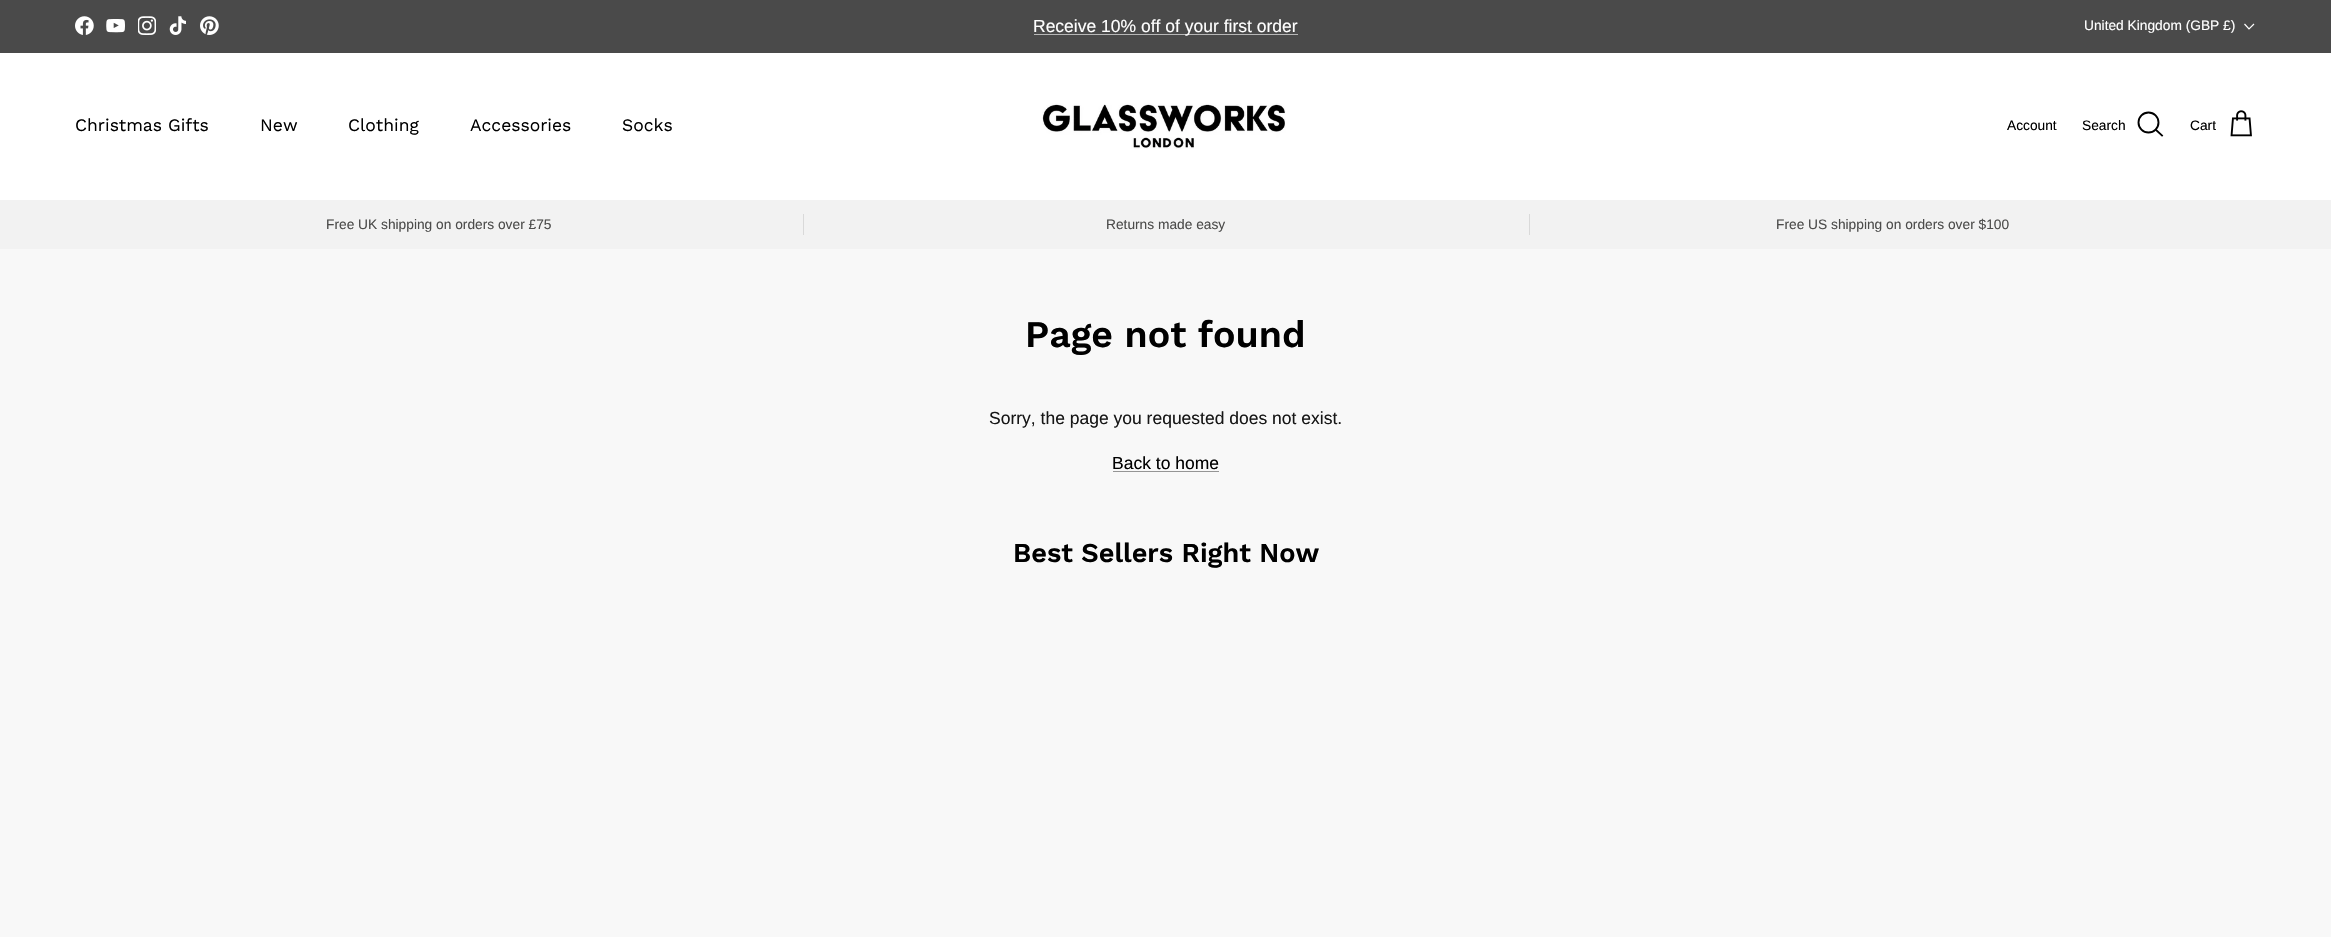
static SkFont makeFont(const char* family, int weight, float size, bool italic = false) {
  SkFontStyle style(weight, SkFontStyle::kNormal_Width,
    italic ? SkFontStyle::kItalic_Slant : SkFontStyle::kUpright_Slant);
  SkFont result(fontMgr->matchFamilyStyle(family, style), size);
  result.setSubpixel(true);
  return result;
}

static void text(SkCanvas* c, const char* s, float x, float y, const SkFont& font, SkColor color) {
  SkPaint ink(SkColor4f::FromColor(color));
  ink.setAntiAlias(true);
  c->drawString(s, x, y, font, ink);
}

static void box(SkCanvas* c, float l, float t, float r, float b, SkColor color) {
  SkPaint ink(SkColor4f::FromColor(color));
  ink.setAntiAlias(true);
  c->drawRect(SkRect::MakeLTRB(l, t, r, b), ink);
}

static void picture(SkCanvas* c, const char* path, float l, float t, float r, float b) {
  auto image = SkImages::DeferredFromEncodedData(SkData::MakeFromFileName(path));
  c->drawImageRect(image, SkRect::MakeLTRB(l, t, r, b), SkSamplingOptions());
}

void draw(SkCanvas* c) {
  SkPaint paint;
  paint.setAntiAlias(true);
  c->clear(0xfff8f8f8);
  box(c, 0, 0, 2331, 53, 0xff4a4a4a);
  picture(c, "img_01.png", 75, 16, 94, 35);
  picture(c, "img_02.png", 106, 19, 125, 33);
  picture(c, "img_03.png", 138, 16, 156, 35);
  picture(c, "img_04.png", 169, 16, 186, 35);
  picture(c, "img_05.png", 200, 16, 219, 35);
  box(c, 1034, 34, 1298, 35, 0xffb7b7b7);
  SkFont face1 = makeFont("Arimo", 400, 17.5f);
  text(c, "Receive 10% off of your first order", 1033, 32, face1, 0xffffffff);
  SkFont face2 = makeFont("Arimo", 400, 13.75f);
  text(c, "United Kingdom (GBP £)", 2084, 30, face2, 0xffffffff);
  paint.setStyle(SkPaint::kStroke_Style);
  paint.setStrokeWidth(1.2f);
  paint.setColor(0xffffffff);
  c->drawPath(SkPathBuilder().moveTo(2254, 24).lineTo(2249, 29).lineTo(2244.5f, 24).detach(), paint);
  box(c, 0, 53, 2331, 200, 0xffffffff);
  SkFont face3 = makeFont("Work Sans", 400, 17.5f);
  text(c, "Christmas Gifts", 75, 131, face3, 0xff000000);
  text(c, "New", 260, 131, face3, 0xff000000);
  text(c, "Clothing", 348, 131, face3, 0xff000000);
  text(c, "Accessories", 470, 131, face3, 0xff000000);
  text(c, "Socks", 622, 131, face3, 0xff000000);
  picture(c, "img_06.png", 1042, 103, 1286, 149);
  text(c, "Account", 2007, 130, face2, 0xff000000);
  text(c, "Search", 2082, 130, face2, 0xff000000);
  paint.setStrokeWidth(1.9f);
  paint.setColor(0xff000000);
  c->drawCircle(2148.5f, 122.5f, 10, paint);
  paint.setStrokeCap(SkPaint::kSquare_Cap);
  c->drawPath(SkPathBuilder().moveTo(2156, 130).lineTo(2162, 135.5f).detach(), paint);
  text(c, "Cart", 2190, 130, face2, 0xff000000);
  picture(c, "img_07.png", 2230, 110, 2252, 137);
  box(c, 0, 200, 2331, 249, 0xfff2f2f2);
  text(c, "Free UK shipping on orders over £75", 326, 229, face2, 0xff4c4c4b);
  box(c, 803, 214, 804, 235, 0xffd9d9d9);
  text(c, "Returns made easy", 1106, 229, face2, 0xff4c4c4b);
  box(c, 1529, 214, 1530, 235, 0xffd9d9d9);
  text(c, "Free US shipping on orders over $100", 1776, 229, face2, 0xff4c4c4b);
  SkFont face4 = makeFont("Work Sans", 600, 37.5f);
  text(c, "Page not found", 1025, 347, face4, 0xff000000);
  text(c, "Sorry, the page you requested does not exist.", 989, 424, face1, 0xff171717);
  text(c, "Back to home", 1112, 469, face1, 0xff000000);
  box(c, 1113, 471, 1219, 472, 0xff959595);
  SkFont face5 = makeFont("Work Sans", 600, 27.1f);
  text(c, "Best Sellers Right Now", 1013, 562, face5, 0xff000000);
}
